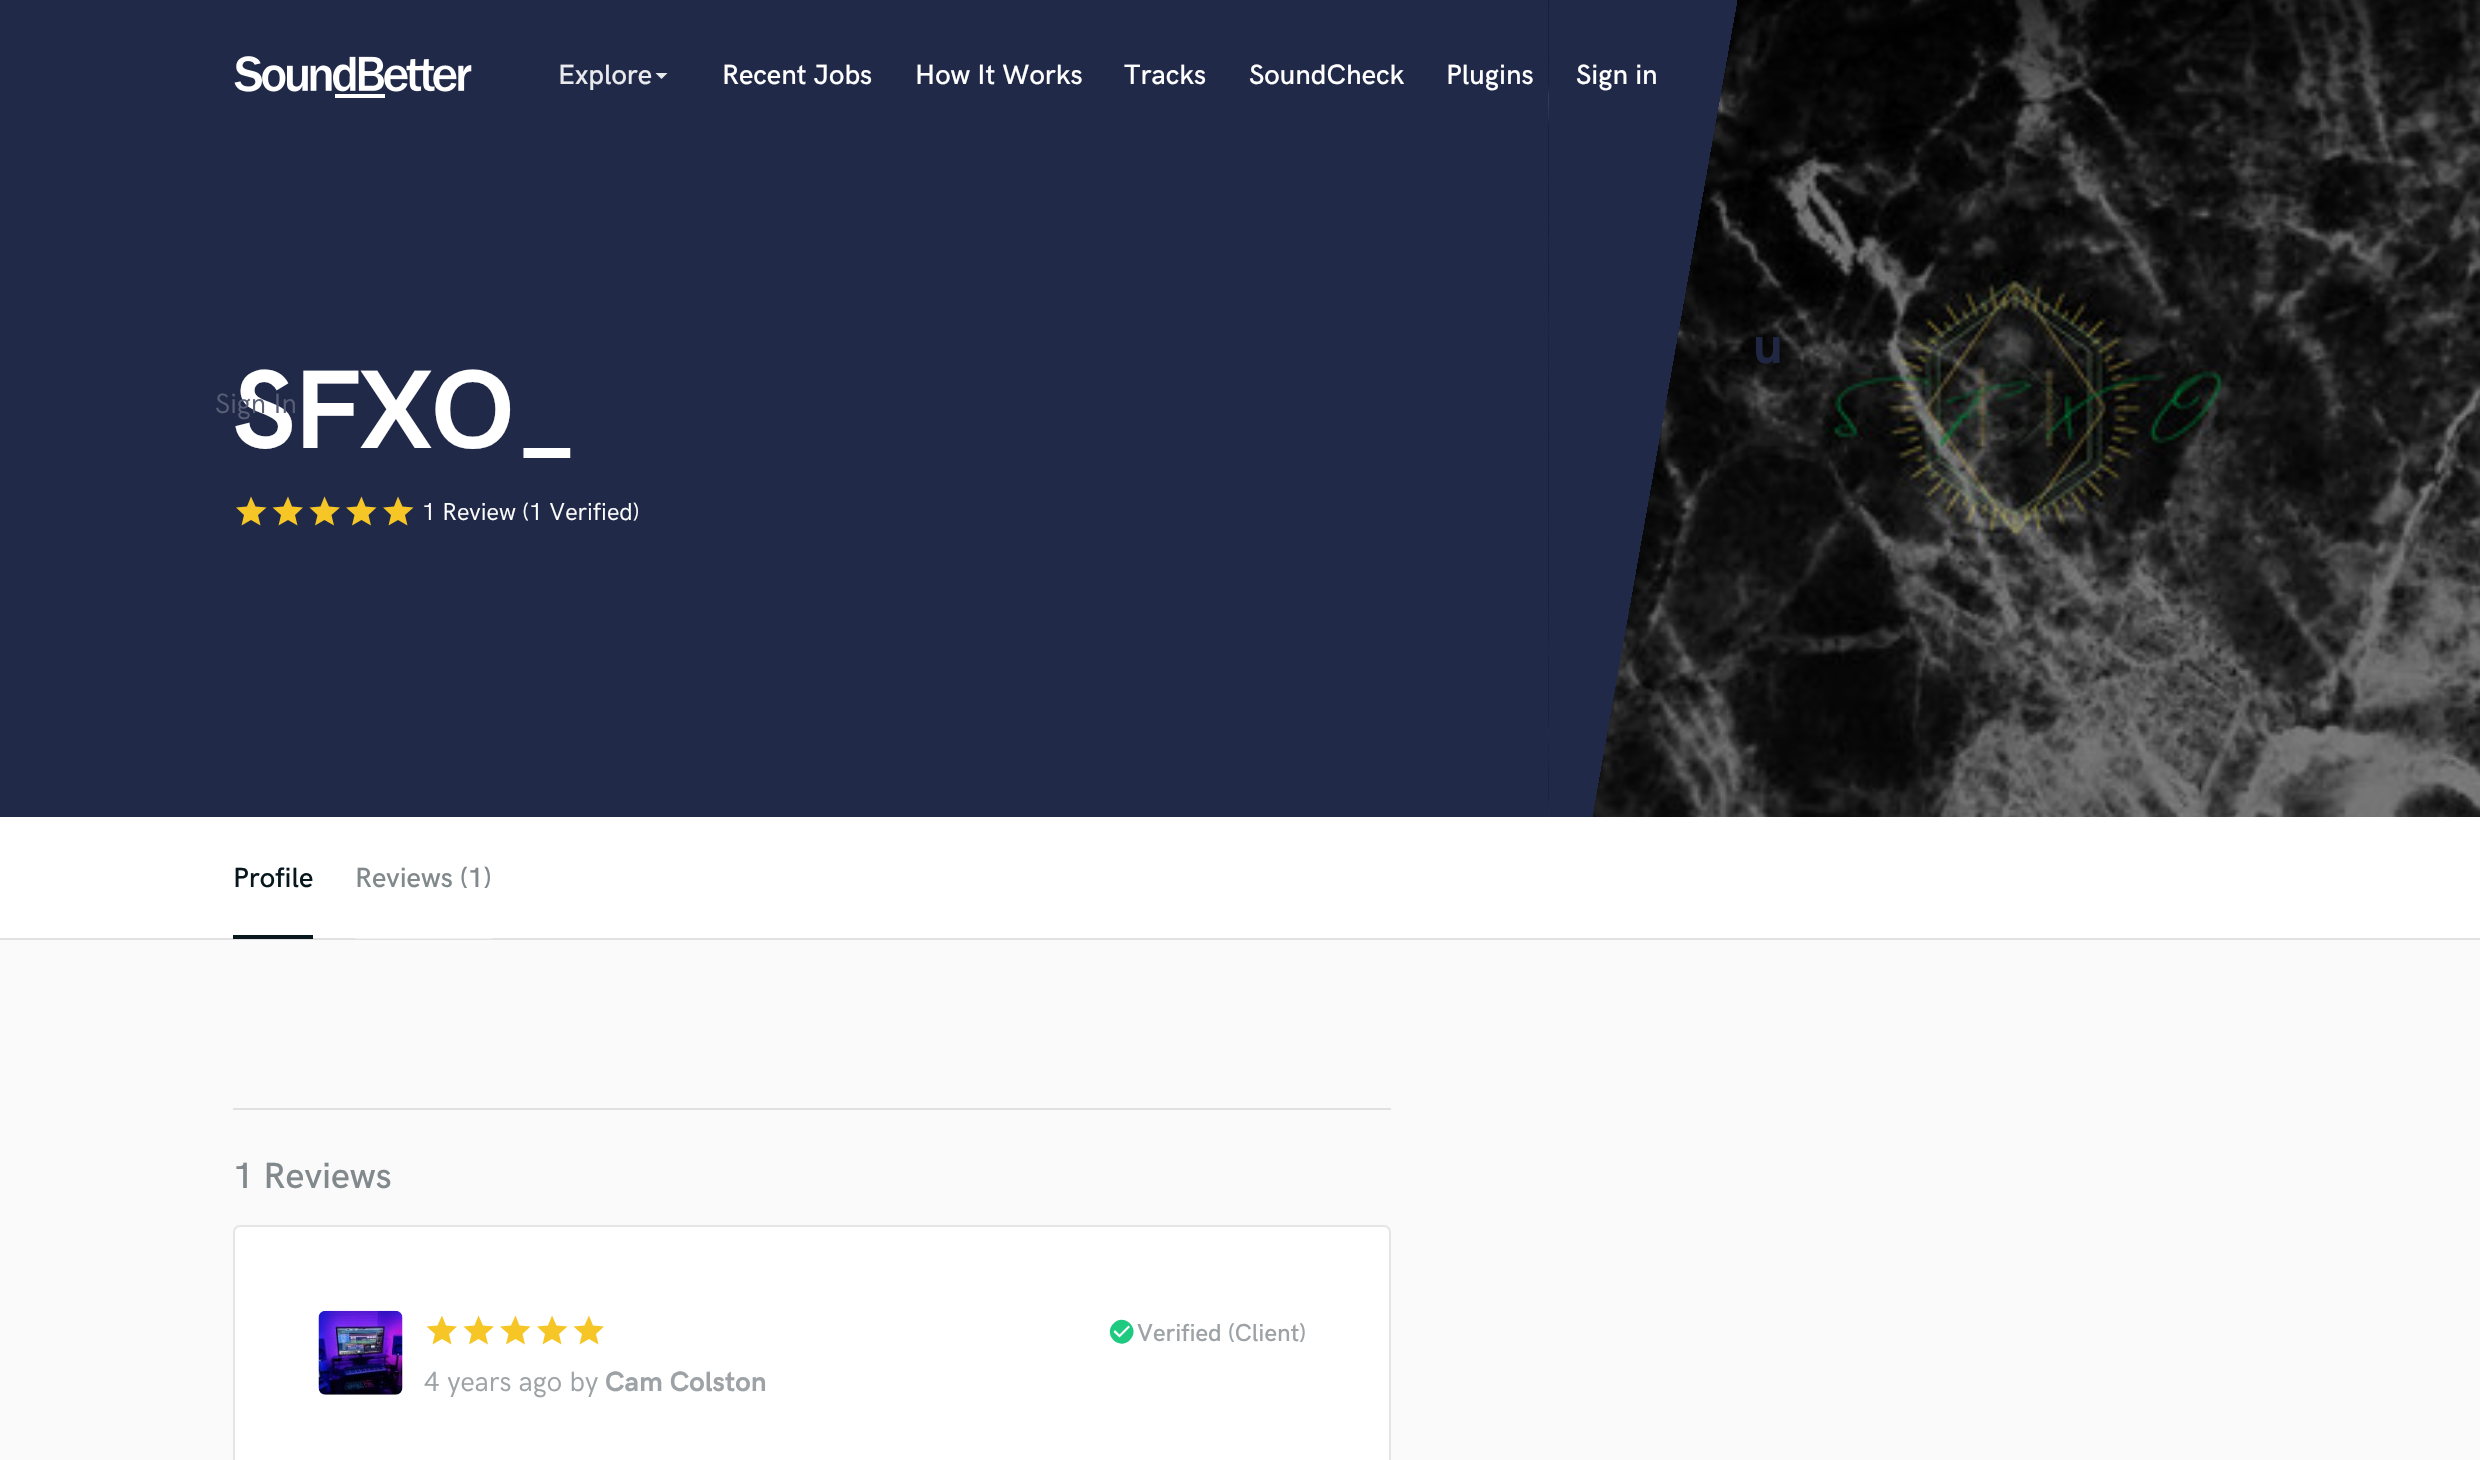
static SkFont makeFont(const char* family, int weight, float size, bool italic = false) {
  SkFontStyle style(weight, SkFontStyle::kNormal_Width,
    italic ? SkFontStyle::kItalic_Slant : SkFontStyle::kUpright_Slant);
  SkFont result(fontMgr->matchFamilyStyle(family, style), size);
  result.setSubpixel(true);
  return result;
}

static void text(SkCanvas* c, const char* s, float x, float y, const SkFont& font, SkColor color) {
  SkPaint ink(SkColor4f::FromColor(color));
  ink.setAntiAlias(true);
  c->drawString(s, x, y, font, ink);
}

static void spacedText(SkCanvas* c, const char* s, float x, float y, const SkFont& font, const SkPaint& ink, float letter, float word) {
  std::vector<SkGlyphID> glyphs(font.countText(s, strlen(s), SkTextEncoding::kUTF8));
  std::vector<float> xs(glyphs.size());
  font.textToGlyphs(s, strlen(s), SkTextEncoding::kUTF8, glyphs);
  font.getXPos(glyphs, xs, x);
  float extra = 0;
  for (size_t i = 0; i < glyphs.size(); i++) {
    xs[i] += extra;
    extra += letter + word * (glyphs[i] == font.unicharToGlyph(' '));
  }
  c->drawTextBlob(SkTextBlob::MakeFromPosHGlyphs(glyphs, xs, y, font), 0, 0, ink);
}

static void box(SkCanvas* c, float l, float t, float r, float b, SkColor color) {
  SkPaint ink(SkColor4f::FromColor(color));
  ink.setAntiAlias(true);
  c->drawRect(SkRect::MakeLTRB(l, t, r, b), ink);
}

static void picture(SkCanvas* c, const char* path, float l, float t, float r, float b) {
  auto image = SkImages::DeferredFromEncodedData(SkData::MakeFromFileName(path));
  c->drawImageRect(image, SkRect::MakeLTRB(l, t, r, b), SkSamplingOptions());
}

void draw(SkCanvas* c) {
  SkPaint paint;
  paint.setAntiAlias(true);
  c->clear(0xfffafafa);
  box(c, 0, 0, 1549, 817, 0xff212949);
  picture(c, "img_01.png", 234, 56, 472, 98);
  SkFont face1 = makeFont("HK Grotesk", 500, 28);
  text(c, "Explore", 558, 84, face1, 0xffe9eaed);
  paint.setColor(0xffe9eaed);
  c->drawPath(SkPathBuilder().moveTo(655.5f, 73).lineTo(667.5f, 73).lineTo(661.5f, 79).close().detach(), paint);
  text(c, "Recent Jobs", 722, 84, face1, 0xffffffff);
  text(c, "How It Works", 915, 84, face1, 0xffffffff);
  text(c, "Tracks", 1124, 84, face1, 0xffffffff);
  text(c, "SoundCheck", 1249, 84, face1, 0xffffffff);
  text(c, "Plugins", 1446, 84, face1, 0xffffffff);
  picture(c, "img_02.png", 1548, 0, 2480, 817);
  text(c, "Sign in", 1576, 84, face1, 0xffffffff);
  SkFont face2 = makeFont("HK Grotesk", 700, 112);
  paint.setColor(0xffffffff);
  spacedText(c, "SFXO_", 233, 448, face2, paint, -1.75f, 0);
  SkFont face3 = makeFont("HK Grotesk", 400, 28);
  text(c, "Sign In", 215, 413, face3, 0xff585e76);
  paint.setColor(0xfff5c625);
  c->drawPath(SkPathBuilder().moveTo(251, 520).lineTo(241.5f, 525.5f).lineTo(244, 515).lineTo(236, 507.5f).lineTo(247, 506.5f).lineTo(251, 496.5f).lineTo(255.5f, 506.5f).lineTo(266.5f, 507.5f).lineTo(258, 515).lineTo(260.5f, 525.5f).close().detach(), paint);
  c->drawPath(SkPathBuilder().moveTo(288, 520).lineTo(278.5f, 525.5f).lineTo(281, 515).lineTo(272.5f, 507.5f).lineTo(283.5f, 506.5f).lineTo(288, 496.5f).lineTo(292, 506.5f).lineTo(303, 507.5f).lineTo(295, 515).lineTo(297.5f, 525.5f).close().detach(), paint);
  c->drawPath(SkPathBuilder().moveTo(324.5f, 520).lineTo(315, 525.5f).lineTo(317.5f, 515).lineTo(309.5f, 507.5f).lineTo(320.5f, 506.5f).lineTo(324.5f, 496.5f).lineTo(329, 506.5f).lineTo(340, 507.5f).lineTo(331.5f, 515).lineTo(334, 525.5f).close().detach(), paint);
  c->drawPath(SkPathBuilder().moveTo(361.5f, 520).lineTo(352, 525.5f).lineTo(354.5f, 515).lineTo(346, 507.5f).lineTo(357, 506.5f).lineTo(361.5f, 496.5f).lineTo(365.5f, 506.5f).lineTo(376.5f, 507.5f).lineTo(368.5f, 515).lineTo(371, 525.5f).close().detach(), paint);
  c->drawPath(SkPathBuilder().moveTo(398, 520).lineTo(388.5f, 525.5f).lineTo(391, 515).lineTo(383, 507.5f).lineTo(394, 506.5f).lineTo(398, 496.5f).lineTo(402.5f, 506.5f).lineTo(413.5f, 507.5f).lineTo(405, 515).lineTo(407.5f, 525.5f).close().detach(), paint);
  SkFont face4 = makeFont("HK Grotesk", 400, 24.5f);
  text(c, "1 Review (1 Verified)", 422, 520, face4, 0xffffffff);
  box(c, 0, 817, 2480, 938, 0xffffffff);
  text(c, "Profile", 233, 887, face1, 0xff07171d);
  box(c, 0, 938, 2480, 940, 0xffe1e1e1);
  box(c, 233, 935, 313, 939, 0xff07171d);
  text(c, "Reviews (1)", 355, 887, face1, 0xff81898c);
  box(c, 355, 938, 492, 939, 0xfff0f0f0);
  box(c, 233, 1108, 1391, 1110, 0xffe1e1e1);
  SkFont face5 = makeFont("HK Grotesk", 500, 36.75f);
  text(c, "1 Reviews", 233, 1188, face5, 0xff81898c);
  paint.setColor(0xffffffff);
  c->drawRoundRect(SkRect::MakeLTRB(234, 1226, 1390, 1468), 6, 6, paint);
  paint.setStyle(SkPaint::kStroke_Style);
  paint.setStrokeWidth(2);
  paint.setColor(0xffe5e5e5);
  c->drawRoundRect(SkRect::MakeLTRB(234, 1226, 1390, 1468), 6, 6, paint);
  picture(c, "img_03.png", 318, 1310, 403, 1395);
  paint.setStyle(SkPaint::kFill_Style);
  paint.setColor(0xff1ec980);
  c->drawPath(SkPathBuilder().moveTo(1119.5f, 1337.5f).lineTo(1130, 1327).lineTo(1128.5f, 1325.5f).lineTo(1119.5f, 1334.5f).lineTo(1115, 1330).lineTo(1113.5f, 1332).close().moveTo(1113.5f, 1323.5f).cubicTo(1124.5f, 1312.5f, 1141, 1329, 1130, 1340).cubicTo(1119, 1351, 1102.5f, 1334.5f, 1113.5f, 1323.5f).close().detach(), paint);
  SkFont face6 = makeFont("HK Grotesk", 500, 24.5f);
  text(c, "Verified (Client)", 1137, 1341, face6, 0xff9ca2a5);
  paint.setColor(0xfff5c625);
  c->drawPath(SkPathBuilder().moveTo(442, 1339).lineTo(432.5f, 1344.5f).lineTo(435, 1334).lineTo(426.5f, 1326.5f).lineTo(437.5f, 1325.5f).lineTo(442, 1315.5f).lineTo(446, 1325.5f).lineTo(457, 1326.5f).lineTo(449, 1334).lineTo(451.5f, 1344.5f).close().detach(), paint);
  c->drawPath(SkPathBuilder().moveTo(478.5f, 1339).lineTo(469, 1344.5f).lineTo(471.5f, 1334).lineTo(463.5f, 1326.5f).lineTo(474.5f, 1325.5f).lineTo(478.5f, 1315.5f).lineTo(483, 1325.5f).lineTo(494, 1326.5f).lineTo(485.5f, 1334).lineTo(488, 1344.5f).close().detach(), paint);
  c->drawPath(SkPathBuilder().moveTo(515.5f, 1339).lineTo(506, 1344.5f).lineTo(508.5f, 1334).lineTo(500, 1326.5f).lineTo(511, 1325.5f).lineTo(515.5f, 1315.5f).lineTo(519.5f, 1325.5f).lineTo(530.5f, 1326.5f).lineTo(522.5f, 1334).lineTo(525, 1344.5f).close().detach(), paint);
  c->drawPath(SkPathBuilder().moveTo(552, 1339).lineTo(542.5f, 1344.5f).lineTo(545, 1334).lineTo(537, 1326.5f).lineTo(548, 1325.5f).lineTo(552, 1315.5f).lineTo(556.5f, 1325.5f).lineTo(567.5f, 1326.5f).lineTo(559, 1334).lineTo(561.5f, 1344.5f).close().detach(), paint);
  c->drawPath(SkPathBuilder().moveTo(589, 1339).lineTo(579.5f, 1344.5f).lineTo(582, 1334).lineTo(573.5f, 1326.5f).lineTo(584.5f, 1325.5f).lineTo(589, 1315.5f).lineTo(593, 1325.5f).lineTo(604, 1326.5f).lineTo(596, 1334).lineTo(598.5f, 1344.5f).close().detach(), paint);
  text(c, "4 years ago by", 424, 1391, face3, 0xff9ca2a5);
  SkFont face7 = makeFont("HK Grotesk", 700, 28);
  text(c, "Cam Colston", 605, 1391, face7, 0xff9ca2a5);
  SkFont face8 = makeFont("HK Grotesk", 700, 53);
  text(c, "u", 1753, 363, face8, 0xff1f2743);
}
